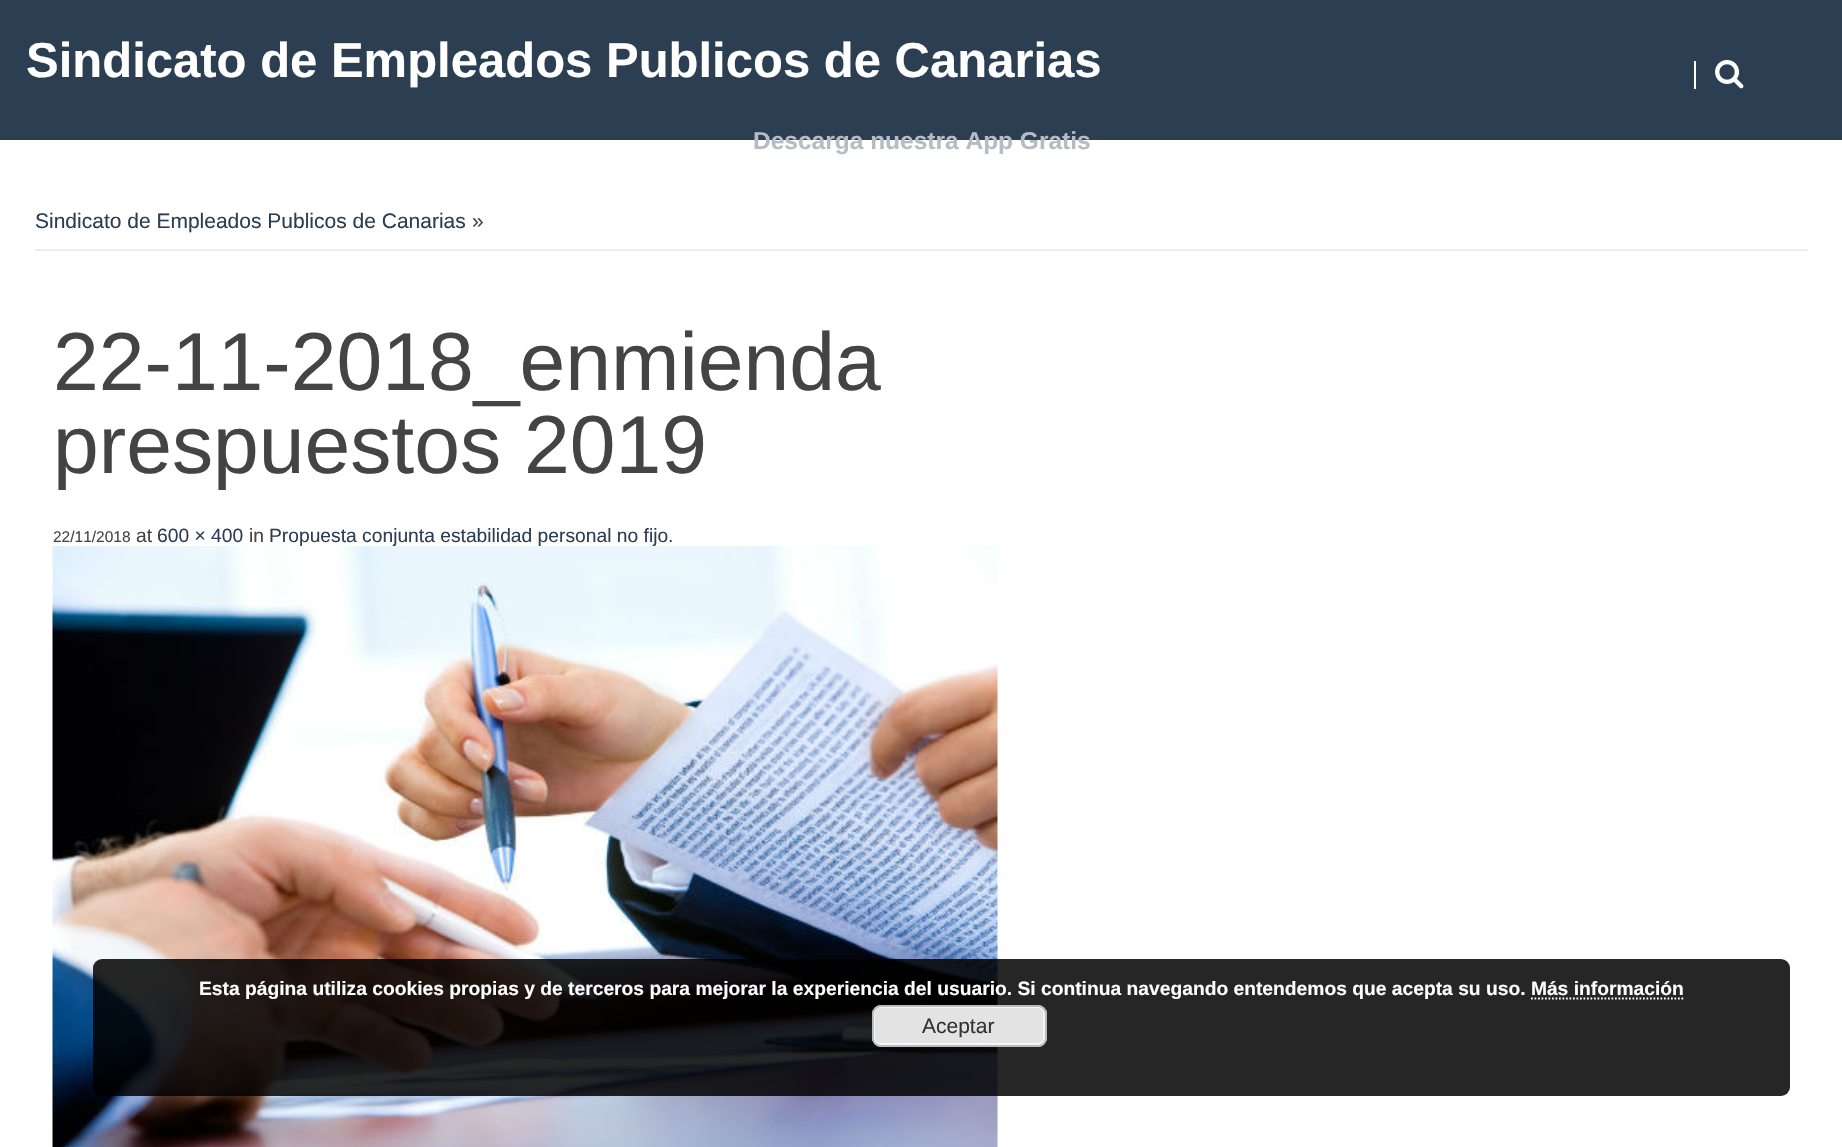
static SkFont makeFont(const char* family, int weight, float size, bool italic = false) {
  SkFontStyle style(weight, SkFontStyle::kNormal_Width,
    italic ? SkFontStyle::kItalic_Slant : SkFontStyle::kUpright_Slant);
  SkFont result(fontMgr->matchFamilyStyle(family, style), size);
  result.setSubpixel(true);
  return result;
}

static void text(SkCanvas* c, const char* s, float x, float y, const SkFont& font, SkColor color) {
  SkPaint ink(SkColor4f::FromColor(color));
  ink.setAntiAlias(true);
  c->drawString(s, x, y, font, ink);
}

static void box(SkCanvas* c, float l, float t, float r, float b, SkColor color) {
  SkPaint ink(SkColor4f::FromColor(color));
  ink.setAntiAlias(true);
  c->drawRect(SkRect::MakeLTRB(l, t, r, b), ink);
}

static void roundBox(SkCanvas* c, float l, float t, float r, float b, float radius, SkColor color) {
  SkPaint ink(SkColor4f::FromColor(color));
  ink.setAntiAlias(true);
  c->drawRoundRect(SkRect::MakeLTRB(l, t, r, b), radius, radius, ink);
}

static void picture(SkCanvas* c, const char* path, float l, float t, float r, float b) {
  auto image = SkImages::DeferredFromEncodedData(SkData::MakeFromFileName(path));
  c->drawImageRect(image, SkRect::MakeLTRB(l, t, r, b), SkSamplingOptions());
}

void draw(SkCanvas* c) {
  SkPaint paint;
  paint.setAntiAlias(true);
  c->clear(0xffffffff);
  box(c, 0, 0, 1842, 140, 0xff2c3e51);
  SkFont face1 = makeFont("Liberation Sans", 700, 49);
  text(c, "Sindicato de Empleados Publicos de Canarias", 26, 77, face1, 0xffffffff);
  box(c, 1694, 61, 1696, 89, 0xffffffff);
  picture(c, "img_01.png", 1715, 59, 1744, 89);
  SkFont face2 = makeFont("Liberation Sans", 700, 24.5f);
  text(c, "Descarga nuestra App Gratis", 753, 149, face2, 0xffb6bcc3);
  box(c, 35, 249, 1808, 251, 0xffebeff1);
  SkFont face3 = makeFont("Liberation Sans", 400, 21);
  text(c, "Sindicato de Empleados Publicos de Canarias", 35, 228, face3, 0xff2c3e51);
  text(c, "»", 472, 228, face3, 0xff444444);
  SkFont face4 = makeFont("Liberation Sans", 400, 82.25f);
  text(c, "22-11-2018_enmienda", 53, 390, face4, 0xff444444);
  text(c, "prespuestos 2019", 53, 473, face4, 0xff444444);
  SkFont face5 = makeFont("Liberation Sans", 400, 15.5f);
  text(c, "22/11/2018", 53, 542, face5, 0xff444444);
  SkFont face6 = makeFont("Liberation Sans", 400, 19.25f);
  text(c, "at", 136, 542, face6, 0xff444444);
  text(c, "600 × 400", 157, 542, face6, 0xff2c3e51);
  text(c, "in", 249, 542, face6, 0xff444444);
  text(c, "Propuesta conjunta estabilidad personal no fijo", 269, 542, face6, 0xff2c3e51);
  text(c, ".", 668, 542, face6, 0xff444444);
  picture(c, "img_02.png", 52, 546, 998, 1147);
  roundBox(c, 93, 959, 1790, 1096, 9, 0xd9000000);
  SkFont face7 = makeFont("Liberation Sans", 700, 19.25f);
  text(c, "Esta página utiliza cookies propias y de terceros para mejorar la experiencia del usuario. Si continua navegando entendemos que acepta su uso. Más información", 199, 995, face7, 0xffffffff);
  paint.setStyle(SkPaint::kStroke_Style);
  paint.setStrokeWidth(1.8f);
  paint.setColor(0xffffffff);
  paint.setPathEffect(SkDashPathEffect::Make({{1.75f, 1.75f}}, 0));
  c->drawPath(SkPathBuilder().moveTo(1531, 998.5f).lineTo(1683.5f, 998.5f).detach(), paint);
  paint.setPathEffect(nullptr);
  roundBox(c, 872, 1005, 1047, 1047, 9, 0xffe3e3e3);
  paint.setStrokeWidth(2);
  paint.setColor(0xfff6f6f6);
  c->drawRoundRect(SkRect::MakeLTRB(874, 1007, 1044, 1044), 6, 6, paint);
  paint.setColor(0xffbbbbbb);
  c->drawRoundRect(SkRect::MakeLTRB(873, 1006, 1046, 1046), 8, 8, paint);
  text(c, "Aceptar", 922, 1033, face3, 0xff333333);
}
